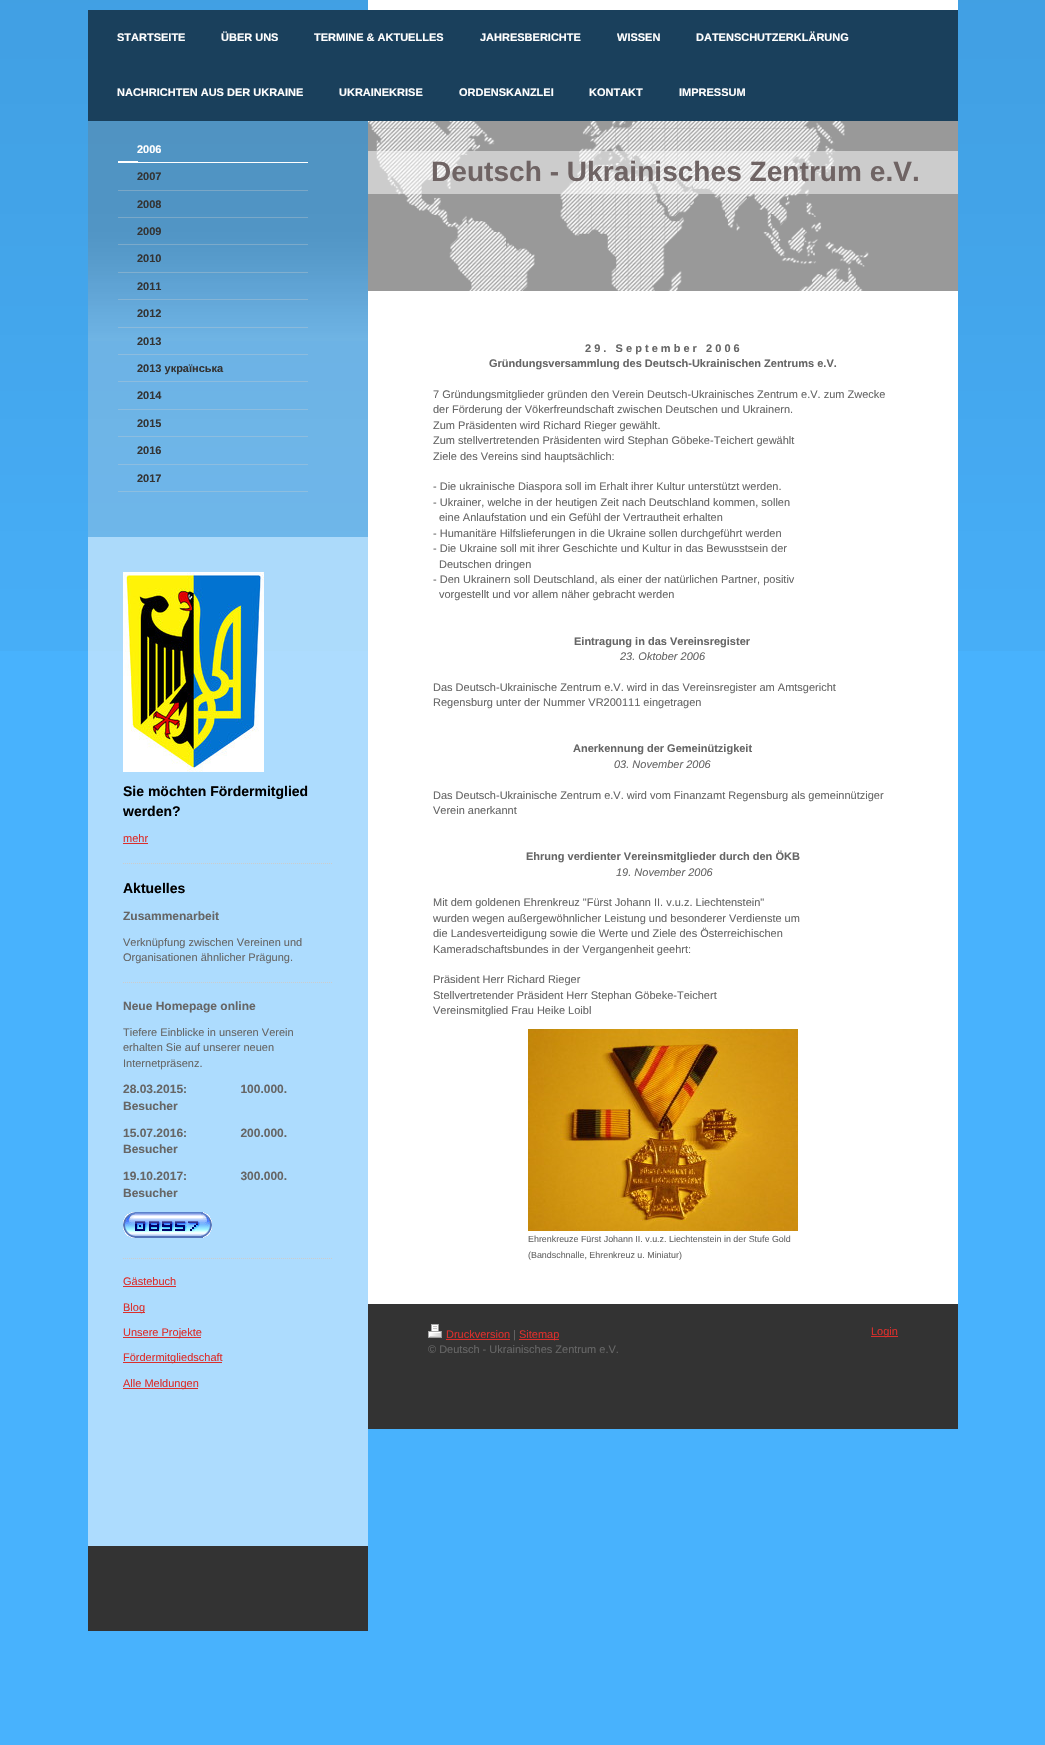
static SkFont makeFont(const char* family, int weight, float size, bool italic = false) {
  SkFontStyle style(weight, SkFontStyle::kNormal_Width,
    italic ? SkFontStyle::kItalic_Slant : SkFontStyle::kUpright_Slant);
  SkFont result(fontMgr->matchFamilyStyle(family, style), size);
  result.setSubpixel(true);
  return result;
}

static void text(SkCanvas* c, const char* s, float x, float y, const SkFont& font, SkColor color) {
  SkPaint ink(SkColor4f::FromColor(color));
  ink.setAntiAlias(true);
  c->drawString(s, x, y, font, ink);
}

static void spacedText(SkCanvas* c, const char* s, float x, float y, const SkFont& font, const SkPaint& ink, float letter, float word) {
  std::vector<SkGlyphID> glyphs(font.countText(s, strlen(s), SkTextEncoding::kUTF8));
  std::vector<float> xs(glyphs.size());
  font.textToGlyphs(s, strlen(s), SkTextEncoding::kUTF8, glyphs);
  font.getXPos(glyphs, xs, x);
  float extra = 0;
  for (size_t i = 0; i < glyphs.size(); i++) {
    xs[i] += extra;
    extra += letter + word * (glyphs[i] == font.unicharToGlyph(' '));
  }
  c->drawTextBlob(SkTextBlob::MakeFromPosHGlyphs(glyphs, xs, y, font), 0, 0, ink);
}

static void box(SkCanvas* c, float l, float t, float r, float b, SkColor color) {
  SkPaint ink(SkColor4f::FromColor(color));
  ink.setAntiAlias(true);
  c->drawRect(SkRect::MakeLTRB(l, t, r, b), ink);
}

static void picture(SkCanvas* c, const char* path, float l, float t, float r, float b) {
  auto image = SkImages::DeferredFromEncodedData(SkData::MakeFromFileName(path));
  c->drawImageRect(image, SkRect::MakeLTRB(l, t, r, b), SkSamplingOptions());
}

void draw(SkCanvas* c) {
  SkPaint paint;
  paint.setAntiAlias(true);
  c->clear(0xff48b2fd);
  picture(c, "img_01.png", 0, 0, 1045, 651);
  box(c, 368, 0, 958, 10, 0xffffffff);
  box(c, 88, 10, 958, 121, 0xff1a405c);
  SkFont face1 = makeFont("Liberation Sans", 700, 11);
  text(c, "STARTSEITE", 117, 41, face1, 0xffffffff);
  text(c, "ÜBER UNS", 221, 41, face1, 0xffffffff);
  text(c, "TERMINE & AKTUELLES", 314, 41, face1, 0xffffffff);
  text(c, "JAHRESBERICHTE", 480, 41, face1, 0xffffffff);
  text(c, "WISSEN", 617, 41, face1, 0xffffffff);
  text(c, "DATENSCHUTZERKLÄRUNG", 696, 41, face1, 0xffffffff);
  text(c, "NACHRICHTEN AUS DER UKRAINE", 117, 96, face1, 0xffffffff);
  text(c, "UKRAINEKRISE", 339, 96, face1, 0xffffffff);
  text(c, "ORDENSKANZLEI", 459, 96, face1, 0xffffffff);
  text(c, "KONTAKT", 589, 96, face1, 0xffffffff);
  text(c, "IMPRESSUM", 679, 96, face1, 0xffffffff);
  picture(c, "img_02.png", 88, 121, 368, 537);
  picture(c, "img_03.png", 118, 161, 308, 163);
  text(c, "2006", 137, 153, face1, 0xffffffff);
  box(c, 118, 190, 308, 191, 0xff7aa7c7);
  text(c, "2007", 137, 180, face1, 0xff333333);
  box(c, 118, 217, 308, 218, 0xff7aa8c8);
  text(c, "2008", 137, 208, face1, 0xff333333);
  box(c, 118, 244, 308, 245, 0xff7caaca);
  text(c, "2009", 137, 235, face1, 0xff333333);
  box(c, 118, 272, 308, 273, 0xff81afcf);
  text(c, "2010", 137, 262, face1, 0xff333333);
  box(c, 118, 299, 308, 300, 0xff86b4d5);
  text(c, "2011", 137, 290, face1, 0xff333333);
  box(c, 118, 327, 308, 328, 0xff8cbadb);
  text(c, "2012", 137, 317, face1, 0xff333333);
  box(c, 118, 354, 308, 355, 0xff8dbcde);
  text(c, "2013", 137, 345, face1, 0xff333333);
  box(c, 118, 381, 308, 382, 0xff8dbcde);
  text(c, "2013 українська", 137, 372, face1, 0xff333333);
  box(c, 118, 409, 308, 410, 0xff8dbddf);
  text(c, "2014", 137, 399, face1, 0xff333333);
  box(c, 118, 436, 308, 437, 0xff8dbddf);
  text(c, "2015", 137, 427, face1, 0xff333333);
  box(c, 118, 464, 308, 465, 0xff8dbde0);
  text(c, "2016", 137, 454, face1, 0xff333333);
  box(c, 118, 491, 308, 492, 0xff8dbee0);
  text(c, "2017", 137, 482, face1, 0xff333333);
  box(c, 88, 537, 368, 1546, 0x8cffffff);
  picture(c, "img_04.png", 123, 572, 264, 772);
  SkFont face2 = makeFont("Liberation Sans", 700, 14);
  text(c, "Sie möchten Fördermitglied", 123, 796, face2, 0xff000000);
  text(c, "werden?", 123, 816, face2, 0xff000000);
  SkFont face3 = makeFont("Liberation Sans", 400, 11);
  text(c, "mehr", 123, 842, face3, 0xffdb2f2c);
  box(c, 123, 843, 148, 844, 0xffdb2f2c);
  paint.setStyle(SkPaint::kStroke_Style);
  paint.setStrokeWidth(1);
  paint.setColor(0xffcccccc);
  paint.setPathEffect(SkDashPathEffect::Make({{1, 1}}, 0));
  c->drawPath(SkPathBuilder().moveTo(123, 863.5f).lineTo(333, 863.5f).detach(), paint);
  paint.setPathEffect(nullptr);
  text(c, "Aktuelles", 123, 893, face2, 0xff000000);
  SkFont face4 = makeFont("Liberation Sans", 700, 12);
  text(c, "Zusammenarbeit", 123, 920, face4, 0xff666666);
  text(c, "Verknüpfung zwischen Vereinen und", 123, 946, face3, 0xff666666);
  text(c, "Organisationen ähnlicher Prägung.", 123, 961, face3, 0xff666666);
  paint.setPathEffect(SkDashPathEffect::Make({{1, 1}}, 0));
  c->drawPath(SkPathBuilder().moveTo(123, 982.5f).lineTo(333, 982.5f).detach(), paint);
  paint.setPathEffect(nullptr);
  text(c, "Neue Homepage online", 123, 1010, face4, 0xff666666);
  text(c, "Tiefere Einblicke in unseren Verein", 123, 1036, face3, 0xff666666);
  text(c, "erhalten Sie auf unserer neuen", 123, 1051, face3, 0xff666666);
  text(c, "Internetpräsenz.", 123, 1067, face3, 0xff666666);
  text(c, "28.03.2015:                100.000.", 123, 1093, face4, 0xff666666);
  text(c, "Besucher", 123, 1110, face4, 0xff666666);
  text(c, "15.07.2016:                200.000.", 123, 1137, face4, 0xff666666);
  text(c, "Besucher", 123, 1153, face4, 0xff666666);
  text(c, "19.10.2017:                300.000.", 123, 1180, face4, 0xff666666);
  text(c, "Besucher", 123, 1197, face4, 0xff666666);
  picture(c, "img_05.png", 123, 1212, 135, 1238);
  picture(c, "img_06.png", 135, 1212, 149, 1238);
  picture(c, "img_07.png", 149, 1212, 162, 1238);
  picture(c, "img_08.png", 162, 1212, 175, 1238);
  picture(c, "img_09.png", 175, 1212, 188, 1238);
  picture(c, "img_10.png", 188, 1212, 201, 1238);
  picture(c, "img_11.png", 201, 1212, 212, 1238);
  paint.setPathEffect(SkDashPathEffect::Make({{1, 1}}, 0));
  c->drawPath(SkPathBuilder().moveTo(123, 1258.5f).lineTo(333, 1258.5f).detach(), paint);
  paint.setPathEffect(nullptr);
  text(c, "Gästebuch", 123, 1285, face3, 0xffdb2f2c);
  box(c, 123, 1286, 176, 1287, 0xffdb2f2c);
  box(c, 123, 1312, 145, 1313, 0xffdb2f2c);
  text(c, "Blog", 123, 1311, face3, 0xffdb2f2c);
  box(c, 123, 1337, 201, 1338, 0xffdb2f2c);
  text(c, "Unsere Projekte", 123, 1336, face3, 0xffdb2f2c);
  box(c, 123, 1362, 222, 1363, 0xffdb2f2c);
  text(c, "Fördermitgliedschaft", 123, 1361, face3, 0xffdb2f2c);
  box(c, 123, 1388, 198, 1389, 0xffdb2f2c);
  text(c, "Alle Meldungen", 123, 1387, face3, 0xffdb2f2c);
  box(c, 88, 1546, 368, 1631, 0xff333333);
  box(c, 368, 121, 958, 291, 0xff999999);
  picture(c, "img_12.png", 368, 121, 869, 291);
  box(c, 368, 151, 958, 194, 0x80ffffff);
  SkFont face5 = makeFont("Liberation Sans", 700, 28);
  paint.setStyle(SkPaint::kFill_Style);
  paint.setColor(0xff6f6464);
  spacedText(c, "Deutsch - Ukrainisches Zentrum e.V.", 431, 181, face5, paint, 0.05f, 0);
  box(c, 368, 291, 958, 1304, 0xffffffff);
  text(c, "2 9 .   S e p t e m b e r   2 0 0 6", 585, 352, face1, 0xff666666);
  text(c, "Gründungsversammlung des Deutsch-Ukrainischen Zentrums e.V.", 489, 367, face1, 0xff666666);
  text(c, "7 Gründungsmitglieder gründen den Verein Deutsch-Ukrainisches Zentrum e.V. zum Zwecke", 433, 398, face3, 0xff666666);
  text(c, "der Förderung der Vökerfreundschaft zwischen Deutschen und Ukrainern.", 433, 413, face3, 0xff666666);
  text(c, "Zum Präsidenten wird Richard Rieger gewählt.", 433, 429, face3, 0xff666666);
  text(c, "Zum stellvertretenden Präsidenten wird Stephan Göbeke-Teichert gewählt", 433, 444, face3, 0xff666666);
  text(c, "Ziele des Vereins sind hauptsächlich:", 433, 460, face3, 0xff666666);
  text(c, "- Die ukrainische Diaspora soll im Erhalt ihrer Kultur unterstützt werden.", 433, 490, face3, 0xff666666);
  text(c, "- Ukrainer, welche in der heutigen Zeit nach Deutschland kommen, sollen", 433, 506, face3, 0xff666666);
  text(c, "eine Anlaufstation und ein Gefühl der Vertrautheit erhalten", 439, 521, face3, 0xff666666);
  text(c, "- Humanitäre Hilfslieferungen in die Ukraine sollen durchgeführt werden", 433, 537, face3, 0xff666666);
  text(c, "- Die Ukraine soll mit ihrer Geschichte und Kultur in das Bewusstsein der", 433, 552, face3, 0xff666666);
  text(c, "Deutschen dringen", 439, 568, face3, 0xff666666);
  text(c, "- Den Ukrainern soll Deutschland, als einer der natürlichen Partner, positiv", 433, 583, face3, 0xff666666);
  text(c, "vorgestellt und vor allem näher gebracht werden", 439, 598, face3, 0xff666666);
  text(c, "Eintragung in das Vereinsregister", 574, 645, face1, 0xff666666);
  SkFont face6 = makeFont("Liberation Sans", 400, 11, true);
  text(c, "23. Oktober 2006", 620, 660, face6, 0xff666666);
  text(c, "Das Deutsch-Ukrainische Zentrum e.V. wird in das Vereinsregister am Amtsgericht", 433, 691, face3, 0xff666666);
  text(c, "Regensburg unter der Nummer VR200111 eingetragen", 433, 706, face3, 0xff666666);
  text(c, "Anerkennung der Gemeinützigkeit", 573, 752, face1, 0xff666666);
  text(c, "03. November 2006", 614, 768, face6, 0xff666666);
  text(c, "Das Deutsch-Ukrainische Zentrum e.V. wird vom Finanzamt Regensburg als gemeinnütziger", 433, 799, face3, 0xff666666);
  text(c, "Verein anerkannt", 433, 814, face3, 0xff666666);
  text(c, "Ehrung verdienter Vereinsmitglieder durch den ÖKB", 526, 860, face1, 0xff666666);
  text(c, "19. November 2006", 616, 876, face6, 0xff666666);
  text(c, "Mit dem goldenen Ehrenkreuz \"Fürst Johann II. v.u.z. Liechtenstein\"", 433, 906, face3, 0xff666666);
  text(c, "wurden wegen außergewöhnlicher Leistung und besonderer Verdienste um", 433, 922, face3, 0xff666666);
  text(c, "die Landesverteidigung sowie die Werte und Ziele des Österreichischen", 433, 937, face3, 0xff666666);
  text(c, "Kameradschaftsbundes in der Vergangenheit geehrt:", 433, 953, face3, 0xff666666);
  text(c, "Präsident Herr Richard Rieger", 433, 983, face3, 0xff666666);
  text(c, "Stellvertretender Präsident Herr Stephan Göbeke-Teichert", 433, 999, face3, 0xff666666);
  text(c, "Vereinsmitglied Frau Heike Loibl", 433, 1014, face3, 0xff666666);
  picture(c, "img_13.png", 528, 1029, 798, 1231);
  SkFont face7 = makeFont("Liberation Sans", 400, 8.9f);
  text(c, "Ehrenkreuze Fürst Johann II. v.u.z. Liechtenstein in der Stufe Gold", 528, 1242, face7, 0xff666666);
  text(c, "(Bandschnalle, Ehrenkreuz u. Miniatur)", 528, 1258, face7, 0xff666666);
  box(c, 368, 1304, 958, 1429, 0xff333333);
  picture(c, "img_14.png", 428, 1324, 442, 1338);
  text(c, "Druckversion", 446, 1338, face3, 0xffdb2f2c);
  box(c, 446, 1339, 510, 1340, 0xffdb2f2c);
  text(c, "|", 513, 1338, face3, 0xff666666);
  box(c, 519, 1339, 559, 1340, 0xffdb2f2c);
  text(c, "Sitemap", 519, 1338, face3, 0xffdb2f2c);
  c->save();
  c->clipRect(SkRect::MakeLTRB(428, 1324, 898, 1357));
  text(c, "© Deutsch - Ukrainisches Zentrum e.V.", 428, 1353, face3, 0xff666666);
  c->restore();
  box(c, 871, 1336, 898, 1337, 0xffdb2f2c);
  text(c, "Login", 871, 1335, face3, 0xffdb2f2c);
}
